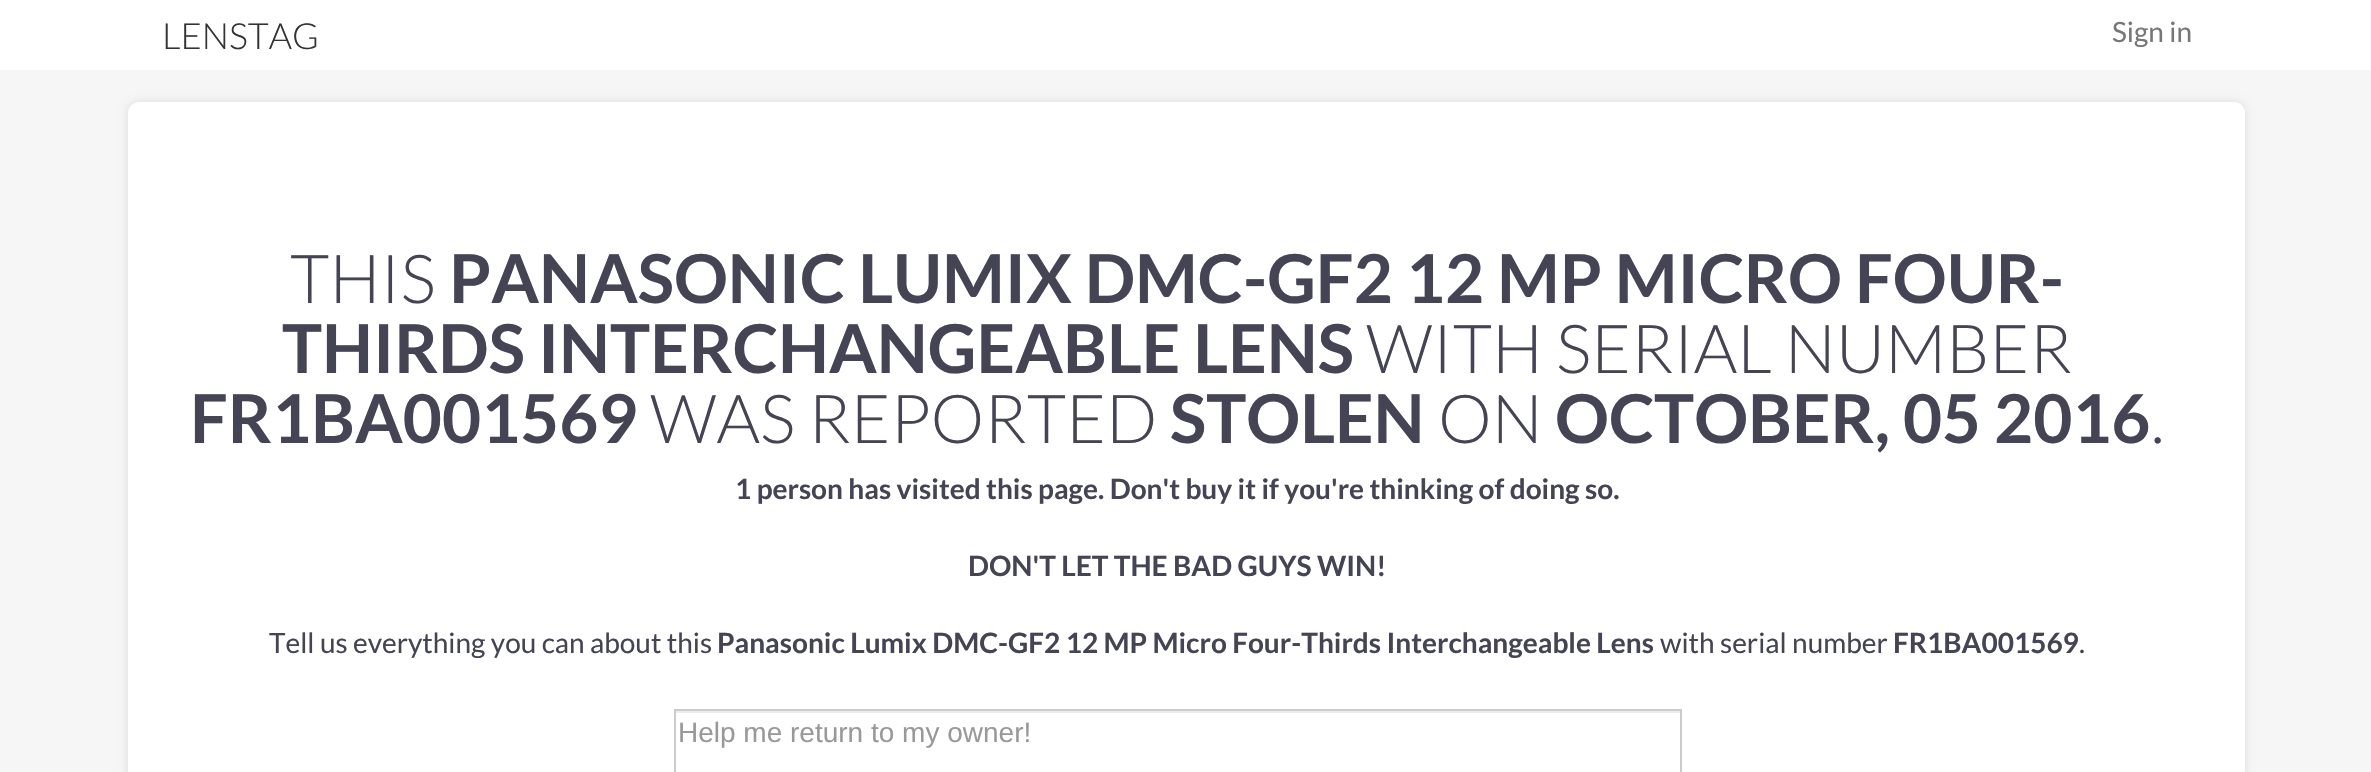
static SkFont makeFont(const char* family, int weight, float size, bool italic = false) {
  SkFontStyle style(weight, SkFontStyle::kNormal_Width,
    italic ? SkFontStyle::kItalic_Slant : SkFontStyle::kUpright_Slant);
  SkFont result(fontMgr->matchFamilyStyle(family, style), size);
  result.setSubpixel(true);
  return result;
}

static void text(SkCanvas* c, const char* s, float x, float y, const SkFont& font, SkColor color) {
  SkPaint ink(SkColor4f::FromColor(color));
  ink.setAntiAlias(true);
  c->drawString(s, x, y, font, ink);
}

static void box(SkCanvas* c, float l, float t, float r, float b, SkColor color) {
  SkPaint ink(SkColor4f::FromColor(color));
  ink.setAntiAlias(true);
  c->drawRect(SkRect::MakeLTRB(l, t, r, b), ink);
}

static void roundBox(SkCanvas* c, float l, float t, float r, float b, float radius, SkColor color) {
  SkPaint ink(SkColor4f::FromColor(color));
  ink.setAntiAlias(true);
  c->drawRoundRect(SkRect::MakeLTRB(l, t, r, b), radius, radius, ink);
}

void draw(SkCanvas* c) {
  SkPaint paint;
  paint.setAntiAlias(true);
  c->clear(0xfff6f6f6);
  box(c, 0, 0, 2371, 70, 0xffffffff);
  SkFont face1 = makeFont("Lato", 300, 36);
  text(c, "LENSTAG", 162, 49, face1, 0xff333333);
  SkFont face2 = makeFont("Lato", 400, 28);
  text(c, "Sign in", 2112, 42, face2, 0xff777777);
  paint.setColor(0x1a000000);
  paint.setMaskFilter(SkMaskFilter::MakeBlur(kNormal_SkBlurStyle, 5));
  c->drawRoundRect(SkRect::MakeLTRB(128, 102, 2245, 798), 11, 11, paint);
  paint.setMaskFilter(nullptr);
  roundBox(c, 128, 102, 2245, 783, 11, 0xffffffff);
  SkFont face3 = makeFont("Lato", 300, 67.4f);
  text(c, "THIS", 290, 303, face3, 0xff444455);
  SkFont face4 = makeFont("Lato", 700, 67.4f);
  text(c, "PANASONIC LUMIX DMC-GF2 12 MP MICRO FOUR-", 449, 303, face4, 0xff444455);
  text(c, "THIRDS INTERCHANGEABLE LENS", 282, 373, face4, 0xff444455);
  text(c, "WITH SERIAL NUMBER", 1366, 373, face3, 0xff444455);
  text(c, "FR1BA001569", 190, 443, face4, 0xff444455);
  text(c, "WAS REPORTED", 650, 443, face3, 0xff444455);
  text(c, "STOLEN", 1170, 443, face4, 0xff444455);
  text(c, "ON", 1438, 443, face3, 0xff444455);
  text(c, "OCTOBER, 05 2016", 1555, 443, face4, 0xff444455);
  text(c, ".", 2151, 443, face3, 0xff444455);
  SkFont face5 = makeFont("Lato", 700, 28);
  text(c, "1 person has visited this page. Don't buy it if you're thinking of doing so.", 735, 499, face5, 0xff444455);
  text(c, "DON'T LET THE BAD GUYS WIN!", 968, 576, face5, 0xff444455);
  text(c, "Tell us everything you can about this", 269, 653, face2, 0xff444455);
  text(c, "Panasonic Lumix DMC-GF2 12 MP Micro Four-Thirds Interchangeable Lens", 717, 653, face5, 0xff444455);
  text(c, "with serial number", 1660, 653, face2, 0xff444455);
  text(c, "FR1BA001569", 1893, 653, face5, 0xff444455);
  text(c, ".", 2079, 653, face2, 0xff444455);
  box(c, 676, 711, 1680, 713, 0xffececec);
  paint.setStyle(SkPaint::kStroke_Style);
  paint.setStrokeWidth(2);
  paint.setColor(0xffcccccc);
  c->drawRect(SkRect::MakeLTRB(675, 710, 1681, 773), paint);
  SkFont face6 = makeFont("Liberation Sans", 400, 28);
  text(c, "Help me return to my owner!", 678, 742, face6, 0xff999999);
}
